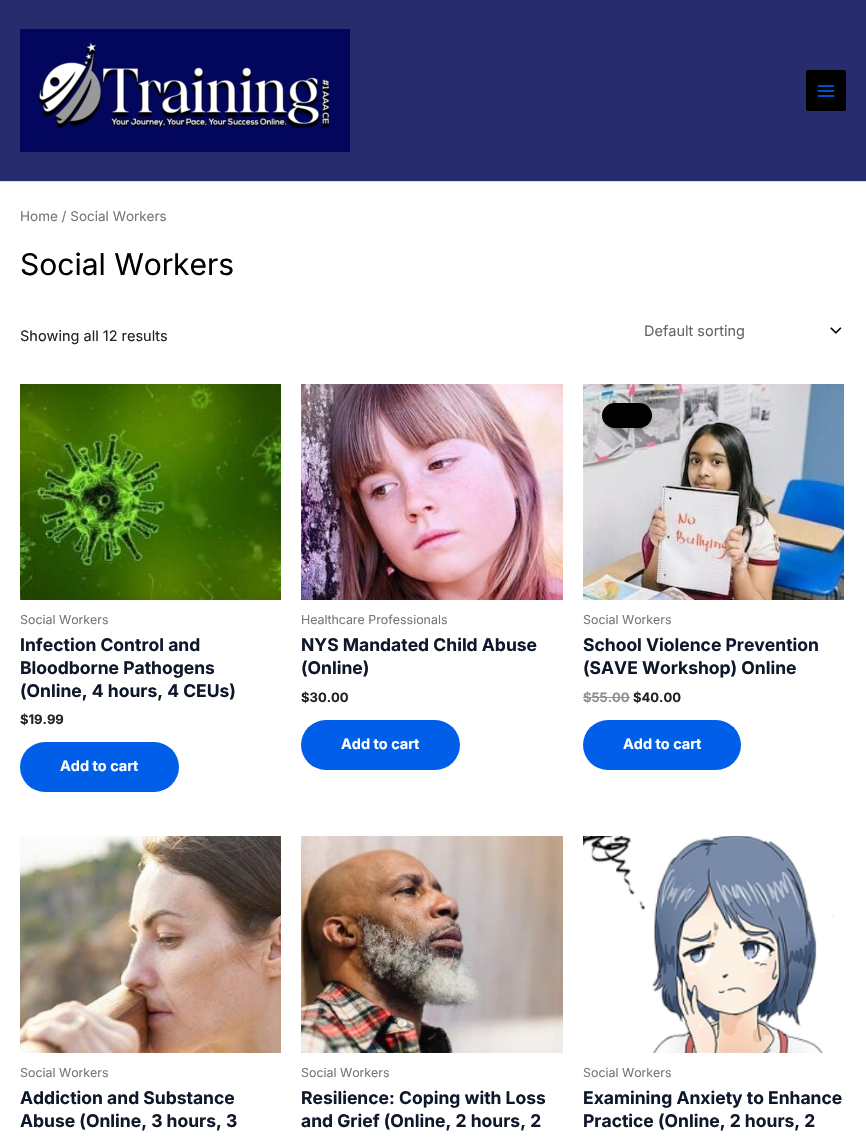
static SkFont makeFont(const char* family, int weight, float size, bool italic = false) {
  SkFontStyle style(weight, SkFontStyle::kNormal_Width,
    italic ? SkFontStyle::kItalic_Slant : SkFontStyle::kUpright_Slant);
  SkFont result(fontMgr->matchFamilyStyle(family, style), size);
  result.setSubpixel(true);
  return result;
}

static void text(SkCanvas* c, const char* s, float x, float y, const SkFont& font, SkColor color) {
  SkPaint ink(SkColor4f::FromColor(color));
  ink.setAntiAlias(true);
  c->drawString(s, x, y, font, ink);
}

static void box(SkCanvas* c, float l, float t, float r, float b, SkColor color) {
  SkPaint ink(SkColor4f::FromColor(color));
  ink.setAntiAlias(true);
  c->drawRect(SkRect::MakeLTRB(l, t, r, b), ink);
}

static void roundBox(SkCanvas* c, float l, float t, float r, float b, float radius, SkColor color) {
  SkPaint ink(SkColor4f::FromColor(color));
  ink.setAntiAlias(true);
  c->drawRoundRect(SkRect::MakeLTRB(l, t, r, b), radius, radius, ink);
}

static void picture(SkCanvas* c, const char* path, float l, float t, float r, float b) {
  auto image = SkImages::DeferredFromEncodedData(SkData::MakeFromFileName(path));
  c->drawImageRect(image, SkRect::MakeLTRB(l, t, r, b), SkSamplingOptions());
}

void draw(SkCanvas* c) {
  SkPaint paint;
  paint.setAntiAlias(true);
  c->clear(0xffffffff);
  box(c, 0, 0, 866, 181, 0xff272c6c);
  box(c, 0, 181, 866, 182, 0xffdbdee0);
  picture(c, "img_01.png", 20, 29, 350, 152);
  roundBox(c, 806, 70, 846, 111, 2, 0xff000000);
  picture(c, "img_02.png", 817, 85, 835, 97);
  SkFont face1 = makeFont("Inter", 400, 13.5f);
  text(c, "Home / Social Workers", 20, 221, face1, 0xff777777);
  SkFont face2 = makeFont("Inter", 400, 30);
  text(c, "Social Workers", 20, 275, face2, 0xff000000);
  SkFont face3 = makeFont("Inter", 400, 14.5f);
  text(c, "Showing all 12 results", 20, 341, face3, 0xff222222);
  picture(c, "img_03.png", 830, 327, 842, 334);
  text(c, "Default sorting", 644, 336, face3, 0xff666666);
  picture(c, "img_04.png", 20, 384, 281, 600);
  SkFont face4 = makeFont("Inter", 400, 12.4f);
  text(c, "Social Workers", 20, 624, face4, 0xff777777);
  SkFont face5 = makeFont("Inter", 700, 17.5f);
  text(c, "Infection Control and", 20, 651, face5, 0xff0f172a);
  text(c, "Bloodborne Pathogens", 20, 674, face5, 0xff0f172a);
  text(c, "(Online, 4 hours, 4 CEUs)", 20, 697, face5, 0xff0f172a);
  SkFont face6 = makeFont("Inter", 700, 13);
  text(c, "$19.99", 20, 724, face6, 0xff222222);
  roundBox(c, 20, 742, 179, 792, 25, 0xff005ee9);
  SkFont face7 = makeFont("Inter", 700, 14.5f);
  text(c, "Add to cart", 60, 771, face7, 0xffffffff);
  picture(c, "img_05.png", 301, 384, 563, 600);
  text(c, "Healthcare Professionals", 301, 624, face4, 0xff777777);
  text(c, "NYS Mandated Child Abuse", 301, 651, face5, 0xff0f172a);
  text(c, "(Online)", 301, 674, face5, 0xff0f172a);
  text(c, "$30.00", 301, 702, face6, 0xff222222);
  roundBox(c, 301, 720, 460, 770, 25, 0xff005ee9);
  text(c, "Add to cart", 341, 749, face7, 0xffffffff);
  picture(c, "img_06.png", 583, 384, 844, 600);
  paint.setColor(0x26000000);
  paint.setMaskFilter(SkMaskFilter::MakeBlur(kNormal_SkBlurStyle, 2));
  c->drawRoundRect(SkRect::MakeLTRB(602, 407, 652, 432), 12.5f, 12.5f, paint);
  paint.setMaskFilter(nullptr);
  roundBox(c, 602, 403, 652, 428, 12.5f, 0xff000000);
  text(c, "Social Workers", 583, 624, face4, 0xff777777);
  text(c, "School Violence Prevention", 583, 651, face5, 0xff0f172a);
  text(c, "(SAVE Workshop) Online", 583, 674, face5, 0xff0f172a);
  text(c, "$55.00", 583, 702, face6, 0xff919191);
  box(c, 583, 697, 630, 698, 0xff919191);
  text(c, "$40.00", 633, 702, face6, 0xff222222);
  roundBox(c, 583, 720, 741, 770, 25, 0xff005ee9);
  text(c, "Add to cart", 623, 749, face7, 0xffffffff);
  picture(c, "img_07.png", 20, 836, 281, 1053);
  text(c, "Social Workers", 20, 1077, face4, 0xff777777);
  text(c, "Addiction and Substance", 20, 1104, face5, 0xff0f172a);
  text(c, "Abuse (Online, 3 hours, 3", 20, 1127, face5, 0xff0f172a);
  picture(c, "img_08.png", 301, 836, 563, 1053);
  text(c, "Social Workers", 301, 1077, face4, 0xff777777);
  text(c, "Resilience: Coping with Loss", 301, 1104, face5, 0xff0f172a);
  text(c, "and Grief (Online, 2 hours, 2", 301, 1127, face5, 0xff0f172a);
  picture(c, "img_09.png", 583, 836, 834, 1053);
  text(c, "Social Workers", 583, 1077, face4, 0xff777777);
  text(c, "Examining Anxiety to Enhance", 583, 1104, face5, 0xff0f172a);
  text(c, "Practice (Online, 2 hours, 2", 583, 1127, face5, 0xff0f172a);
}
